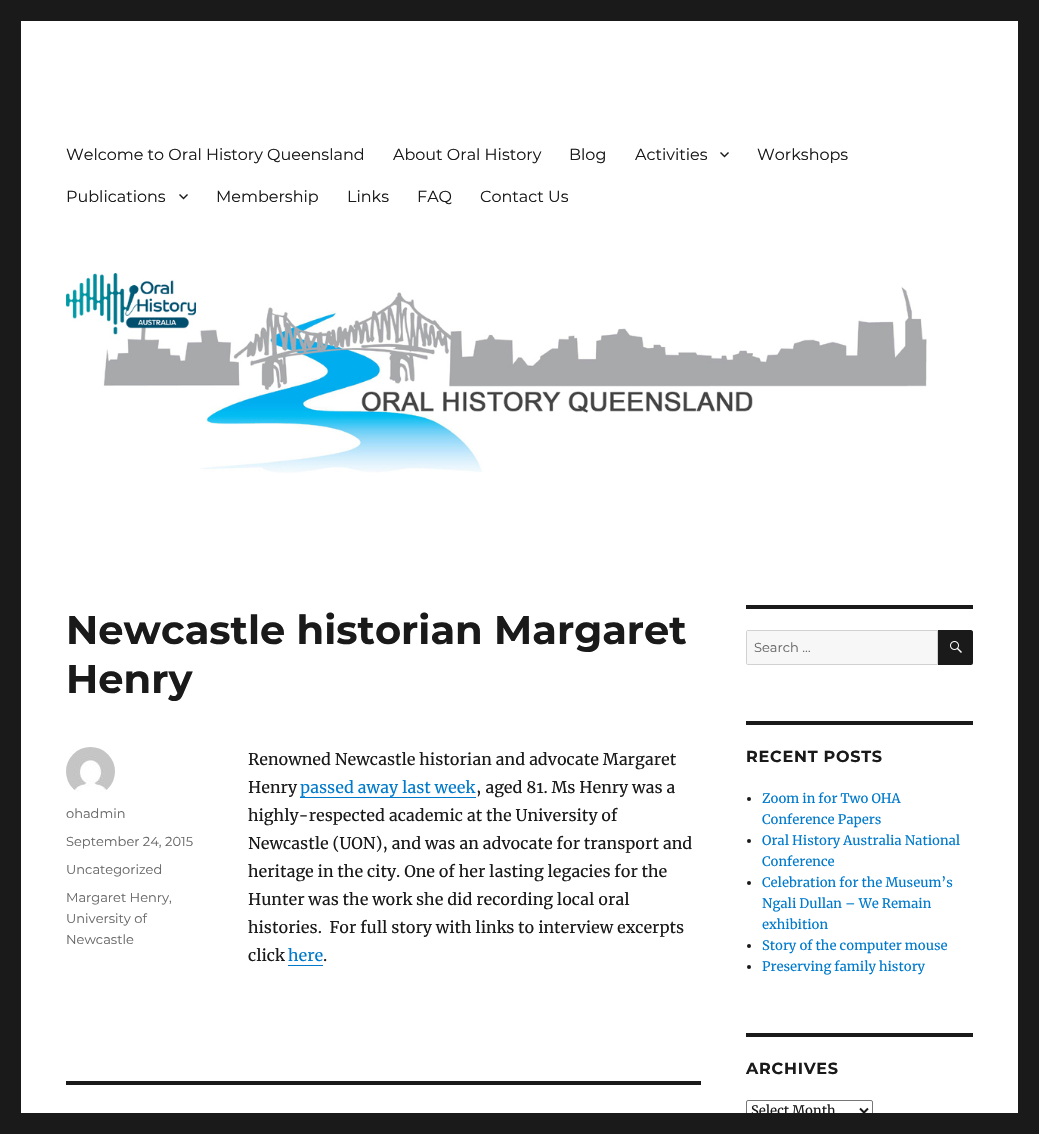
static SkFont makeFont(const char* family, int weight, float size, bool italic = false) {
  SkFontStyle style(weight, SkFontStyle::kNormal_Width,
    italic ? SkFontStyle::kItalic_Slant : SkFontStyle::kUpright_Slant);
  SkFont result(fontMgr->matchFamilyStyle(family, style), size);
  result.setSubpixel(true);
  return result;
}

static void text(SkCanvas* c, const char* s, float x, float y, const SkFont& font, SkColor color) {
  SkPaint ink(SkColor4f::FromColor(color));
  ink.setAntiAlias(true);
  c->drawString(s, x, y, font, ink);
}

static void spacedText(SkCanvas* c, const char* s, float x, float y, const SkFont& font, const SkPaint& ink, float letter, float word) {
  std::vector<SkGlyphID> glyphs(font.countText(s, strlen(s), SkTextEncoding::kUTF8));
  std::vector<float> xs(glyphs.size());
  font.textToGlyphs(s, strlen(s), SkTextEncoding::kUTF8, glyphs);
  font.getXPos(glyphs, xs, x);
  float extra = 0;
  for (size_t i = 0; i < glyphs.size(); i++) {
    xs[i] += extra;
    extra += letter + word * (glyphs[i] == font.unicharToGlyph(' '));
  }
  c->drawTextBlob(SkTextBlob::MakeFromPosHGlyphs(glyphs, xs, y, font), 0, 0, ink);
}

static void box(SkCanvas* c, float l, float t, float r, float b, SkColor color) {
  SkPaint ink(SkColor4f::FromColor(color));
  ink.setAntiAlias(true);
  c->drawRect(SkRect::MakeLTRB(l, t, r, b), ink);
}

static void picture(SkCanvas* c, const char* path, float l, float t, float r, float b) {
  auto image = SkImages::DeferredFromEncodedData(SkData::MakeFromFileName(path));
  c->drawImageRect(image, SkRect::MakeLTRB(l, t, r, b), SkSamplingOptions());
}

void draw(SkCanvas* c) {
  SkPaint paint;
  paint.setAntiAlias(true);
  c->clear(0xff1a1a1a);
  box(c, 21, 21, 1018, 1113, 0xffffffff);
  SkFont face1 = makeFont("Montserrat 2", 100, 16);
  text(c, "Welcome to Oral History Queensland", 66, 160, face1, 0xff1a1a1a);
  text(c, "About Oral History", 393, 160, face1, 0xff1a1a1a);
  text(c, "Blog", 569, 160, face1, 0xff1a1a1a);
  text(c, "Activities", 635, 160, face1, 0xff1a1a1a);
  picture(c, "img_01.png", 720, 152, 729, 158);
  text(c, "Workshops", 757, 160, face1, 0xff1a1a1a);
  text(c, "Publications", 66, 202, face1, 0xff1a1a1a);
  picture(c, "img_01.png", 179, 194, 188, 200);
  text(c, "Membership", 216, 202, face1, 0xff1a1a1a);
  text(c, "Links", 347, 202, face1, 0xff1a1a1a);
  text(c, "FAQ", 417, 202, face1, 0xff1a1a1a);
  text(c, "Contact Us", 480, 202, face1, 0xff1a1a1a);
  picture(c, "img_02.png", 66, 273, 927, 473);
  SkFont face2 = makeFont("Montserrat", 100, 40);
  text(c, "Newcastle historian Margaret", 66, 644, face2, 0xff1a1a1a);
  text(c, "Henry", 66, 693, face2, 0xff1a1a1a);
  picture(c, "img_03.png", 66, 747, 115, 792);
  SkFont face3 = makeFont("Montserrat 2", 100, 13);
  text(c, "ohadmin", 66, 818, face3, 0xff686868);
  text(c, "September 24, 2015", 66, 846, face3, 0xff686868);
  text(c, "Uncategorized", 66, 874, face3, 0xff686868);
  text(c, "Margaret Henry,", 66, 902, face3, 0xff686868);
  text(c, "University of", 66, 923, face3, 0xff686868);
  text(c, "Newcastle", 66, 944, face3, 0xff686868);
  SkFont face4 = makeFont("Merriweather", 400, 16);
  text(c, "Renowned Newcastle historian and advocate Margaret", 248, 765, face4, 0xff1a1a1a);
  text(c, "Henry", 248, 793, face4, 0xff1a1a1a);
  text(c, "passed away last week", 300, 793, face4, 0xff007acc);
  box(c, 300, 797, 476, 798, 0xff007acc);
  text(c, ", aged 81. Ms Henry was a", 476, 793, face4, 0xff1a1a1a);
  text(c, "highly-respected academic at the University of", 248, 821, face4, 0xff1a1a1a);
  text(c, "Newcastle (UON), and was an advocate for transport and", 248, 849, face4, 0xff1a1a1a);
  text(c, "heritage in the city. One of her lasting legacies for the", 248, 877, face4, 0xff1a1a1a);
  text(c, "Hunter was the work she did recording local oral", 248, 905, face4, 0xff1a1a1a);
  text(c, "histories.  For full story with links to interview excerpts", 248, 933, face4, 0xff1a1a1a);
  text(c, "click", 248, 961, face4, 0xff1a1a1a);
  text(c, "here", 288, 961, face4, 0xff007acc);
  box(c, 288, 965, 323, 966, 0xff007acc);
  text(c, ".", 323, 961, face4, 0xff1a1a1a);
  box(c, 66, 1081, 701, 1085, 0xff1a1a1a);
  box(c, 746, 605, 973, 609, 0xff1a1a1a);
  paint.setColor(0xfff7f7f7);
  c->drawPath(SkPathBuilder().moveTo(748, 630.5f).lineTo(937.5f, 630.5f).lineTo(937.5f, 664.5f).lineTo(748, 664.5f).cubicTo(747, 664.5f, 746.5f, 664, 746.5f, 663).lineTo(746.5f, 632).cubicTo(746.5f, 631, 747, 630.5f, 748, 630.5f).close().detach(), paint);
  paint.setStyle(SkPaint::kStroke_Style);
  paint.setStrokeWidth(1);
  paint.setColor(0xffd1d1d1);
  c->drawPath(SkPathBuilder().moveTo(748, 630.5f).lineTo(937.5f, 630.5f).lineTo(937.5f, 664.5f).lineTo(748, 664.5f).cubicTo(747, 664.5f, 746.5f, 664, 746.5f, 663).lineTo(746.5f, 632).cubicTo(746.5f, 631, 747, 630.5f, 748, 630.5f).close().detach(), paint);
  text(c, "Search …", 754, 652, face3, 0xff686868);
  paint.setStyle(SkPaint::kFill_Style);
  paint.setColor(0xff1a1a1a);
  c->drawPath(SkPathBuilder().moveTo(938, 630).lineTo(971, 630).cubicTo(972, 630, 973, 631, 973, 632).lineTo(973, 663).cubicTo(973, 664, 972, 665, 971, 665).lineTo(938, 665).close().detach(), paint);
  picture(c, "img_04.png", 950, 641, 962, 653);
  box(c, 746, 721, 973, 725, 0xff1a1a1a);
  SkFont face5 = makeFont("Montserrat", 100, 16);
  spacedText(c, "RECENT POSTS", 746, 762, face5, paint, 0.75f, 0);
  c->drawCircle(749, 799, 2, paint);
  SkFont face6 = makeFont("Merriweather", 400, 13);
  text(c, "Zoom in for Two OHA", 762, 803, face6, 0xff007acc);
  text(c, "Conference Papers", 762, 824, face6, 0xff007acc);
  c->drawCircle(749, 841, 2, paint);
  text(c, "Oral History Australia National", 762, 845, face6, 0xff007acc);
  text(c, "Conference", 762, 866, face6, 0xff007acc);
  c->drawCircle(749, 883, 2, paint);
  text(c, "Celebration for the Museum’s", 762, 887, face6, 0xff007acc);
  text(c, "Ngali Dullan – We Remain", 762, 908, face6, 0xff007acc);
  text(c, "exhibition", 762, 929, face6, 0xff007acc);
  c->drawCircle(749, 946, 2, paint);
  text(c, "Story of the computer mouse", 762, 950, face6, 0xff007acc);
  c->drawCircle(749, 967, 2, paint);
  text(c, "Preserving family history", 762, 971, face6, 0xff007acc);
  box(c, 746, 1033, 973, 1037, 0xff1a1a1a);
  spacedText(c, "ARCHIVES", 746, 1074, face5, paint, 0.75f, 0);
  paint.setStyle(SkPaint::kStroke_Style);
  paint.setColor(0xff767676);
  c->drawRoundRect(SkRect::MakeLTRB(746.5f, 1100.5f, 872.5f, 1120.5f), 1.5f, 1.5f, paint);
  paint.setStrokeWidth(2);
  paint.setColor(0xff1a1a1a);
  c->drawPath(SkPathBuilder().moveTo(860, 1108.5f).lineTo(864, 1112.5f).lineTo(868, 1108.5f).detach(), paint);
  text(c, "Select Month", 751, 1115, face6, 0xff1a1a1a);
  box(c, 746, 1113, 873, 1121, 0xff1a1a1a);
}
